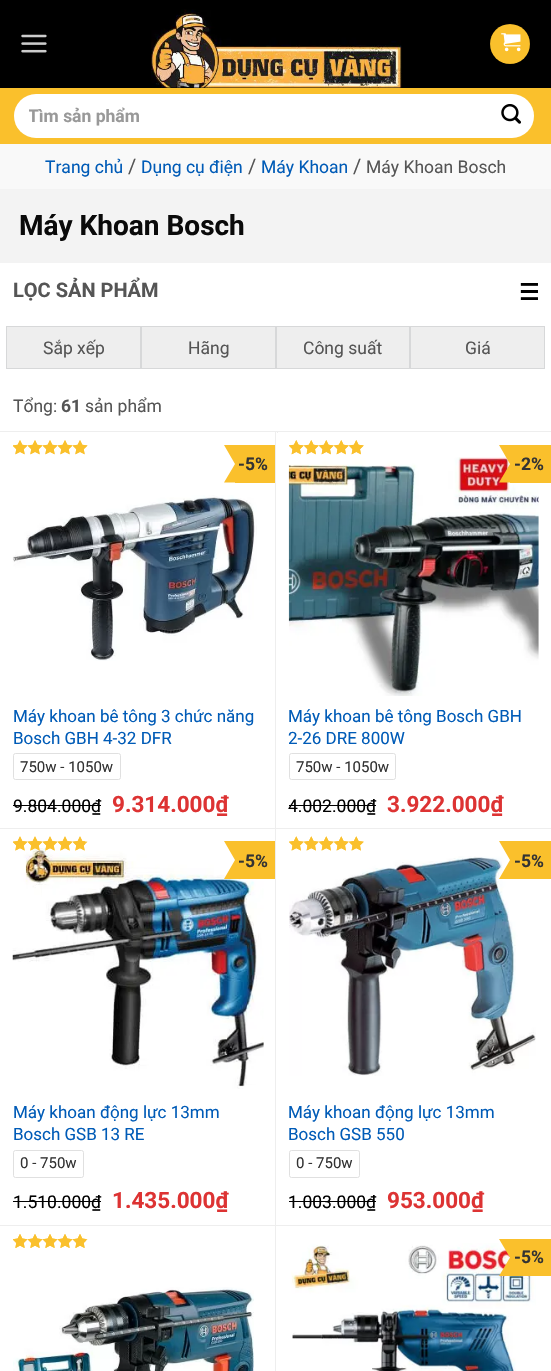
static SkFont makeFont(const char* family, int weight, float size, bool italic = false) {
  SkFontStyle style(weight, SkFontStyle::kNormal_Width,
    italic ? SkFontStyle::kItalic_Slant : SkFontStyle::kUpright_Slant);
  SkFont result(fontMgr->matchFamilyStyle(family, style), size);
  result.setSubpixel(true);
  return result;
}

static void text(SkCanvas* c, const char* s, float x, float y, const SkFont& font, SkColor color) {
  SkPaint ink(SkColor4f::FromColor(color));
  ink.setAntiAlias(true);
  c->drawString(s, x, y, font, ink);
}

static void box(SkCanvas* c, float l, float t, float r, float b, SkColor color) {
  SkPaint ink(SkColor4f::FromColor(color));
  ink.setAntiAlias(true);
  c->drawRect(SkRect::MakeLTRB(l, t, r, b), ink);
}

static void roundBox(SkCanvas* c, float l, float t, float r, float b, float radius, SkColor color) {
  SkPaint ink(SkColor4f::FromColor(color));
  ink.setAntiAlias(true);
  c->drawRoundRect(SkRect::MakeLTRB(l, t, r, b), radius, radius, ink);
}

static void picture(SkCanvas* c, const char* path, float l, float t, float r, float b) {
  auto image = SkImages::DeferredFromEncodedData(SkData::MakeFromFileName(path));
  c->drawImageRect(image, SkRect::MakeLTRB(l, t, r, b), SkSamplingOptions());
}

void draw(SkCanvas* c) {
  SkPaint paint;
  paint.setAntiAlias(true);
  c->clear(0xfff3f3f3);
  box(c, 0, 0, 551, 88, 0xff000000);
  picture(c, "img_01.png", 21, 34, 47, 53);
  picture(c, "img_02.png", 151, 9, 402, 88);
  paint.setColor(0xfffac02c);
  c->drawCircle(510, 44, 20, paint);
  paint.setStyle(SkPaint::kStroke_Style);
  paint.setStrokeWidth(1);
  paint.setColor(0x0d000000);
  c->drawRect(SkRect::MakeLTRB(490.5f, 24.5f, 529.5f, 63.5f), paint);
  picture(c, "img_03.png", 501, 33, 521, 52);
  box(c, 0, 88, 551, 144, 0xfffac02c);
  roundBox(c, 14, 94, 534, 138, 22, 0xffffffff);
  paint.setColor(0x17ffffff);
  c->drawRoundRect(SkRect::MakeLTRB(14.5f, 94.5f, 533.5f, 137.5f), 21.5f, 21.5f, paint);
  c->save();
  c->clipRect(SkRect::MakeLTRB(29, 106, 515, 126));
  SkFont face1 = makeFont("Roboto", 700, 17.5f);
  text(c, "Tìm sản phẩm", 28, 122, face1, 0xff999999);
  c->restore();
  picture(c, "img_04.png", 501, 104, 521, 124);
  box(c, 0, 144, 551, 189, 0xfff9f9f9);
  SkFont face2 = makeFont("Roboto", 400, 17.5f);
  text(c, "Trang chủ", 45, 173, face2, 0xff005bb7);
  SkFont face3 = makeFont("Roboto", 400, 20);
  text(c, "/", 128, 173, face3, 0xff555555);
  text(c, "Dụng cụ điện", 141, 173, face2, 0xff005bb7);
  text(c, "/", 248, 173, face3, 0xff555555);
  text(c, "Máy Khoan", 261, 173, face2, 0xff005bb7);
  text(c, "/", 353, 173, face3, 0xff555555);
  text(c, "Máy Khoan Bosch", 366, 173, face2, 0xff555555);
  SkFont face4 = makeFont("Roboto", 700, 28);
  text(c, "Máy Khoan Bosch", 19, 235, face4, 0xff0a0a0a);
  box(c, 0, 263, 551, 320, 0xffffffff);
  SkFont face5 = makeFont("Roboto", 700, 20);
  text(c, "LỌC SẢN PHẨM", 13, 297, face5, 0xff555555);
  SkFont face6 = makeFont("DejaVu Sans", 700, 22.5f);
  text(c, "☰", 519, 300, face6, 0xff000000);
  box(c, 0, 320, 551, 433, 0xffffffff);
  paint.setStyle(SkPaint::kFill_Style);
  paint.setColor(0xffeeeeee);
  c->drawRect(SkRect::MakeLTRB(6.5f, 326.5f, 140.5f, 368.5f), paint);
  paint.setStyle(SkPaint::kStroke_Style);
  paint.setColor(0xffd7d8d9);
  c->drawRect(SkRect::MakeLTRB(6.5f, 326.5f, 140.5f, 368.5f), paint);
  text(c, "Sắp xếp", 43, 354, face2, 0xff555555);
  paint.setStyle(SkPaint::kFill_Style);
  paint.setColor(0xffeeeeee);
  c->drawRect(SkRect::MakeLTRB(141.5f, 326.5f, 275.5f, 368.5f), paint);
  paint.setStyle(SkPaint::kStroke_Style);
  paint.setColor(0xffd7d8d9);
  c->drawRect(SkRect::MakeLTRB(141.5f, 326.5f, 275.5f, 368.5f), paint);
  text(c, "Hãng", 188, 354, face2, 0xff555555);
  paint.setStyle(SkPaint::kFill_Style);
  paint.setColor(0xffeeeeee);
  c->drawRect(SkRect::MakeLTRB(276.5f, 326.5f, 409.5f, 368.5f), paint);
  paint.setStyle(SkPaint::kStroke_Style);
  paint.setColor(0xffd7d8d9);
  c->drawRect(SkRect::MakeLTRB(276.5f, 326.5f, 409.5f, 368.5f), paint);
  text(c, "Công suất", 303, 354, face2, 0xff555555);
  paint.setStyle(SkPaint::kFill_Style);
  paint.setColor(0xffeeeeee);
  c->drawRect(SkRect::MakeLTRB(410.5f, 326.5f, 544.5f, 368.5f), paint);
  paint.setStyle(SkPaint::kStroke_Style);
  paint.setColor(0xffd7d8d9);
  c->drawRect(SkRect::MakeLTRB(410.5f, 326.5f, 544.5f, 368.5f), paint);
  text(c, "Giá", 465, 354, face2, 0xff555555);
  text(c, "Tổng:", 13, 412, face2, 0xff555555);
  text(c, "61", 61, 412, face1, 0xff555555);
  text(c, "sản phẩm", 85, 412, face2, 0xff555555);
  paint.setColor(0xffeeeeee);
  c->drawRect(SkRect::MakeLTRB(-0.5f, 431.5f, 277.5f, 829.5f), paint);
  box(c, 0, 433, 275, 828, 0xffffffff);
  picture(c, "img_05.png", 13, 440, 88, 455);
  picture(c, "img_06.png", 13, 440, 88, 455);
  box(c, 235, 445, 275, 483, 0xfffac02c);
  paint.setStyle(SkPaint::kFill_Style);
  paint.setColor(0xfffac02c);
  c->drawPath(SkPathBuilder().moveTo(224, 445).lineTo(236, 445).lineTo(235, 464).close().moveTo(236, 482.5f).lineTo(224, 482.5f).lineTo(235, 464).close().detach(), paint);
  text(c, "-5%", 238, 470, face1, 0xff333333);
  text(c, "9.804.000₫", 13, 812, face2, 0xff000000);
  box(c, 13, 805, 101, 806, 0xff000000);
  SkFont face7 = makeFont("Roboto", 700, 22.5f);
  text(c, "9.314.000₫", 112, 812, face7, 0xffdd3333);
  paint.setStyle(SkPaint::kStroke_Style);
  paint.setColor(0xffe0e0e0);
  c->drawRoundRect(SkRect::MakeLTRB(13.5f, 753.5f, 120.5f, 779.5f), 2, 2, paint);
  SkFont face8 = makeFont("Roboto", 400, 15);
  text(c, "750w - 1050w", 20, 772, face8, 0xff333333);
  SkFont face9 = makeFont("Roboto", 400, 17);
  text(c, "Máy khoan bê tông 3 chức năng", 13, 722, face9, 0xff005bb7);
  text(c, "Bosch GBH 4-32 DFR", 13, 744, face9, 0xff005bb7);
  picture(c, "img_07.png", 12, 495, 257, 661);
  paint.setColor(0xffeeeeee);
  c->drawRect(SkRect::MakeLTRB(275.5f, 431.5f, 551.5f, 829.5f), paint);
  box(c, 276, 433, 551, 828, 0xffffffff);
  picture(c, "img_08.png", 289, 440, 364, 455);
  picture(c, "img_09.png", 289, 440, 364, 455);
  picture(c, "img_10.png", 288, 457, 539, 696);
  box(c, 510, 445, 551, 483, 0xfffac02c);
  paint.setStyle(SkPaint::kFill_Style);
  paint.setColor(0xfffac02c);
  c->drawPath(SkPathBuilder().moveTo(499, 445).lineTo(511, 445).lineTo(510, 464).close().moveTo(511, 482.5f).lineTo(499, 482.5f).lineTo(510, 464).close().detach(), paint);
  text(c, "-2%", 514, 470, face1, 0xff333333);
  text(c, "4.002.000₫", 288, 812, face2, 0xff000000);
  box(c, 289, 805, 376, 806, 0xff000000);
  text(c, "3.922.000₫", 387, 812, face7, 0xffdd3333);
  paint.setStyle(SkPaint::kStroke_Style);
  paint.setColor(0xffe0e0e0);
  c->drawRoundRect(SkRect::MakeLTRB(289.5f, 753.5f, 395.5f, 779.5f), 2, 2, paint);
  text(c, "750w - 1050w", 296, 772, face8, 0xff333333);
  text(c, "Máy khoan bê tông Bosch GBH", 288, 722, face9, 0xff005bb7);
  text(c, "2-26 DRE 800W", 288, 744, face9, 0xff005bb7);
  paint.setColor(0xffeeeeee);
  c->drawRect(SkRect::MakeLTRB(-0.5f, 828.5f, 277.5f, 1227.5f), paint);
  box(c, 0, 829, 275, 1225, 0xffffffff);
  picture(c, "img_11.png", 12, 848, 264, 1089);
  picture(c, "img_12.png", 13, 836, 88, 851);
  picture(c, "img_13.png", 13, 836, 85, 851);
  box(c, 235, 841, 275, 879, 0xfffac02c);
  paint.setStyle(SkPaint::kFill_Style);
  paint.setColor(0xfffac02c);
  c->drawPath(SkPathBuilder().moveTo(224, 841).lineTo(236, 841).lineTo(235, 860).close().moveTo(236, 879).lineTo(224, 879).lineTo(235, 860).close().detach(), paint);
  text(c, "-5%", 238, 867, face1, 0xff333333);
  text(c, "1.510.000₫", 13, 1208, face2, 0xff000000);
  box(c, 13, 1201, 101, 1202, 0xff000000);
  text(c, "1.435.000₫", 112, 1208, face7, 0xffdd3333);
  paint.setStyle(SkPaint::kStroke_Style);
  paint.setColor(0xffe0e0e0);
  c->drawRoundRect(SkRect::MakeLTRB(13.5f, 1150.5f, 83.5f, 1177.5f), 2, 2, paint);
  text(c, "0 - 750w", 20, 1168, face8, 0xff333333);
  text(c, "Máy khoan động lực 13mm", 13, 1118, face9, 0xff005bb7);
  text(c, "Bosch GSB 13 RE", 13, 1140, face9, 0xff005bb7);
  paint.setColor(0xffeeeeee);
  c->drawRect(SkRect::MakeLTRB(275.5f, 828.5f, 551.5f, 1227.5f), paint);
  box(c, 276, 829, 551, 1225, 0xffffffff);
  picture(c, "img_14.png", 289, 836, 364, 851);
  picture(c, "img_15.png", 289, 836, 364, 851);
  picture(c, "img_16.png", 289, 856, 536, 1076);
  box(c, 510, 841, 551, 879, 0xfffac02c);
  paint.setStyle(SkPaint::kFill_Style);
  paint.setColor(0xfffac02c);
  c->drawPath(SkPathBuilder().moveTo(499, 841).lineTo(511, 841).lineTo(510, 860).close().moveTo(511, 879).lineTo(499, 879).lineTo(510, 860).close().detach(), paint);
  text(c, "-5%", 514, 867, face1, 0xff333333);
  text(c, "1.003.000₫", 288, 1208, face2, 0xff000000);
  box(c, 289, 1201, 376, 1202, 0xff000000);
  text(c, "953.000₫", 387, 1208, face7, 0xffdd3333);
  paint.setStyle(SkPaint::kStroke_Style);
  paint.setColor(0xffe0e0e0);
  c->drawRoundRect(SkRect::MakeLTRB(289.5f, 1150.5f, 359.5f, 1177.5f), 2, 2, paint);
  text(c, "0 - 750w", 296, 1168, face8, 0xff333333);
  text(c, "Máy khoan động lực 13mm", 288, 1118, face9, 0xff005bb7);
  text(c, "Bosch GSB 550", 288, 1140, face9, 0xff005bb7);
  paint.setColor(0xffeeeeee);
  c->drawRect(SkRect::MakeLTRB(-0.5f, 1225.5f, 277.5f, 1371.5f), paint);
  box(c, 0, 1226, 275, 1371, 0xffffffff);
  picture(c, "img_17.png", 13, 1234, 88, 1248);
  picture(c, "img_18.png", 13, 1234, 86, 1248);
  picture(c, "img_19.png", 13, 1287, 254, 1371);
  c->drawRect(SkRect::MakeLTRB(275.5f, 1225.5f, 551.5f, 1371.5f), paint);
  box(c, 276, 1226, 551, 1371, 0xffffffff);
  picture(c, "img_20.png", 291, 1243, 536, 1371);
  box(c, 510, 1239, 551, 1276, 0xfffac02c);
  paint.setStyle(SkPaint::kFill_Style);
  paint.setColor(0xfffac02c);
  c->drawPath(SkPathBuilder().moveTo(499, 1239).lineTo(511, 1239).lineTo(510, 1257.5f).close().detach(), paint);
  c->drawPath(SkPathBuilder().moveTo(511, 1276).lineTo(499, 1276).lineTo(510, 1257.5f).close().detach(), paint);
  text(c, "-5%", 514, 1263, face1, 0xff333333);
}
